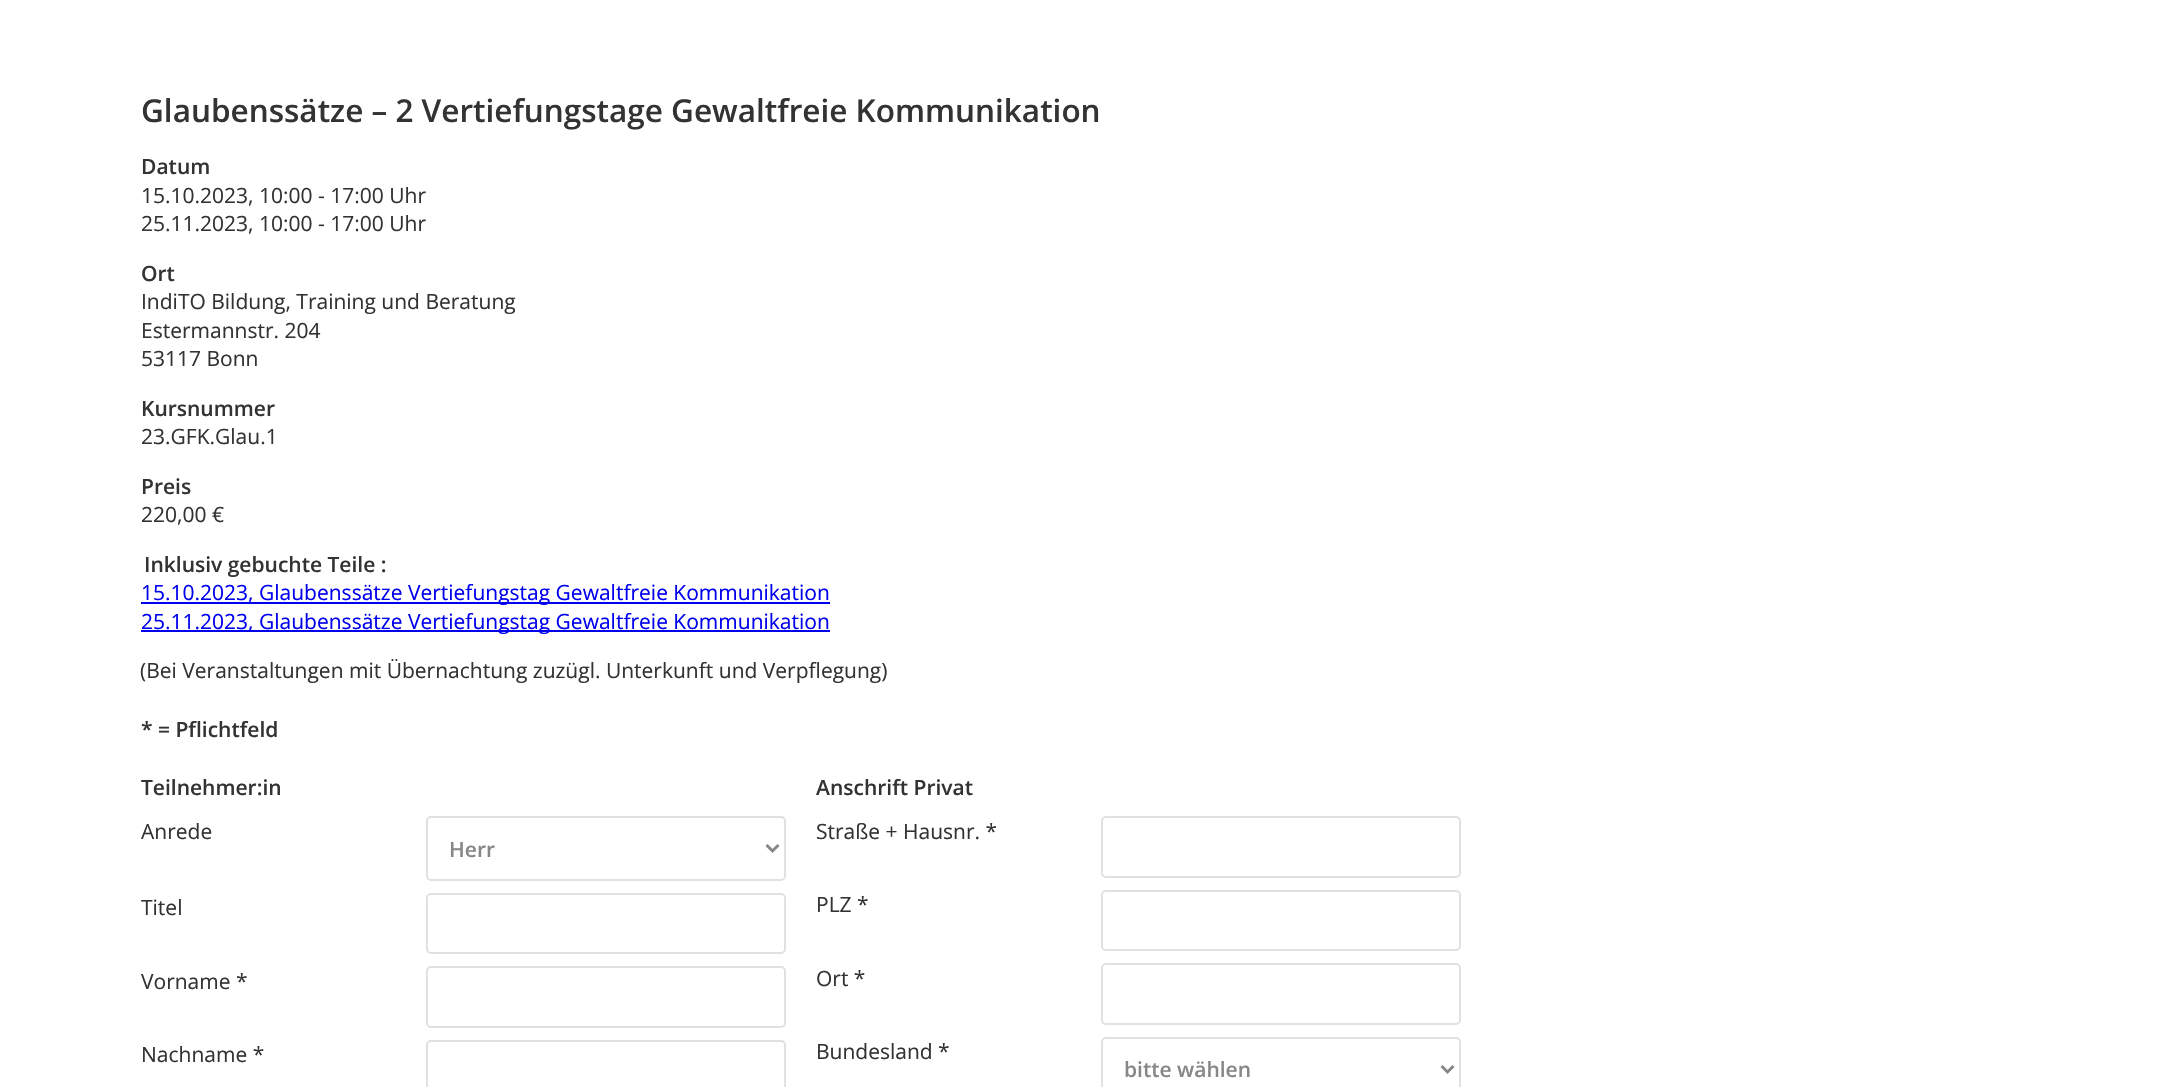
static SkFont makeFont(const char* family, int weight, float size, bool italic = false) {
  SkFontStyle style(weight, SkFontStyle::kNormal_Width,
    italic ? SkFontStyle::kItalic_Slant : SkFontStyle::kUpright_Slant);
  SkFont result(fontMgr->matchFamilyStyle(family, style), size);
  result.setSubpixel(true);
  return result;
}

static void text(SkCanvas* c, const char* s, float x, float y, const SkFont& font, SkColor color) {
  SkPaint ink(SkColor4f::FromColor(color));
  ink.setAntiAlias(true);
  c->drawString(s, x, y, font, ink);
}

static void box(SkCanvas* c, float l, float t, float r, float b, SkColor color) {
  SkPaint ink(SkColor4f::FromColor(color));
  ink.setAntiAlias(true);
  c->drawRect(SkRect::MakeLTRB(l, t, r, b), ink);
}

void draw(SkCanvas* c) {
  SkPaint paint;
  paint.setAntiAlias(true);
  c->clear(0xffffffff);
  SkFont face1 = makeFont("Open Sans", 600, 31.5f);
  text(c, "Glaubenssätze – 2 Vertiefungstage Gewaltfreie Kommunikation", 141, 122, face1, 0xff333333);
  SkFont face2 = makeFont("Open Sans", 600, 21);
  text(c, "Datum", 141, 174, face2, 0xff333333);
  SkFont face3 = makeFont("Open Sans", 400, 21);
  text(c, "15.10.2023, 10:00 - 17:00 Uhr", 141, 203, face3, 0xff333333);
  text(c, "25.11.2023, 10:00 - 17:00 Uhr", 141, 231, face3, 0xff333333);
  text(c, "Ort", 141, 281, face2, 0xff333333);
  text(c, "IndiTO Bildung, Training und Beratung", 141, 309, face3, 0xff333333);
  text(c, "Estermannstr. 204", 141, 338, face3, 0xff333333);
  text(c, "53117 Bonn", 141, 366, face3, 0xff333333);
  text(c, "Kursnummer", 141, 416, face2, 0xff333333);
  text(c, "23.GFK.Glau.1", 141, 444, face3, 0xff333333);
  text(c, "Preis", 141, 494, face2, 0xff333333);
  text(c, "220,00 €", 141, 522, face3, 0xff333333);
  text(c, "Inklusiv gebuchte Teile :", 144, 572, face2, 0xff333333);
  box(c, 141, 602, 830, 604, 0xff0000ee);
  text(c, "15.10.2023, Glaubenssätze Vertiefungstag Gewaltfreie Kommunikation", 141, 600, face3, 0xff0000ee);
  box(c, 141, 630, 830, 632, 0xff0000ee);
  text(c, "25.11.2023, Glaubenssätze Vertiefungstag Gewaltfreie Kommunikation", 141, 629, face3, 0xff0000ee);
  text(c, "(Bei Veranstaltungen mit Übernachtung zuzügl. Unterkunft und Verpflegung)", 140, 678, face3, 0xff333333);
  text(c, "* = Pflichtfeld", 141, 737, face2, 0xff333333);
  text(c, "Teilnehmer:in", 141, 795, face2, 0xff333333);
  text(c, "Anrede", 141, 839, face3, 0xff333333);
  paint.setStyle(SkPaint::kStroke_Style);
  paint.setStrokeWidth(2);
  paint.setColor(0xffe1e1e1);
  c->drawRoundRect(SkRect::MakeLTRB(427, 817, 785, 880), 4, 4, paint);
  paint.setStrokeWidth(3);
  paint.setColor(0xff878787);
  c->drawPath(SkPathBuilder().moveTo(766.5f, 845).lineTo(772.5f, 851).lineTo(778.5f, 845).detach(), paint);
  text(c, "Herr", 449, 857, face2, 0xff878787);
  text(c, "Titel", 141, 915, face3, 0xff333333);
  paint.setStrokeWidth(2);
  paint.setColor(0xffe1e1e1);
  c->drawRoundRect(SkRect::MakeLTRB(427, 894, 785, 953), 4, 4, paint);
  text(c, "Vorname *", 141, 989, face3, 0xff333333);
  c->drawRoundRect(SkRect::MakeLTRB(427, 967, 785, 1027), 4, 4, paint);
  text(c, "Nachname *", 141, 1062, face3, 0xff333333);
  c->drawRoundRect(SkRect::MakeLTRB(427, 1041, 785, 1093), 4, 4, paint);
  text(c, "Anschrift Privat", 816, 795, face2, 0xff333333);
  text(c, "Straße + Hausnr. *", 816, 839, face3, 0xff333333);
  c->drawRoundRect(SkRect::MakeLTRB(1102, 817, 1460, 877), 4, 4, paint);
  text(c, "PLZ *", 816, 912, face3, 0xff333333);
  c->drawRoundRect(SkRect::MakeLTRB(1102, 891, 1460, 950), 4, 4, paint);
  text(c, "Ort *", 816, 986, face3, 0xff333333);
  c->drawRoundRect(SkRect::MakeLTRB(1102, 964, 1460, 1024), 4, 4, paint);
  text(c, "Bundesland *", 816, 1059, face3, 0xff333333);
  c->drawRoundRect(SkRect::MakeLTRB(1102, 1038, 1460, 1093), 4, 4, paint);
  paint.setStrokeWidth(3);
  paint.setColor(0xff878787);
  c->drawPath(SkPathBuilder().moveTo(1441.5f, 1066).lineTo(1447.5f, 1072).lineTo(1453.5f, 1066).detach(), paint);
  text(c, "bitte wählen", 1124, 1077, face2, 0xff878787);
}
